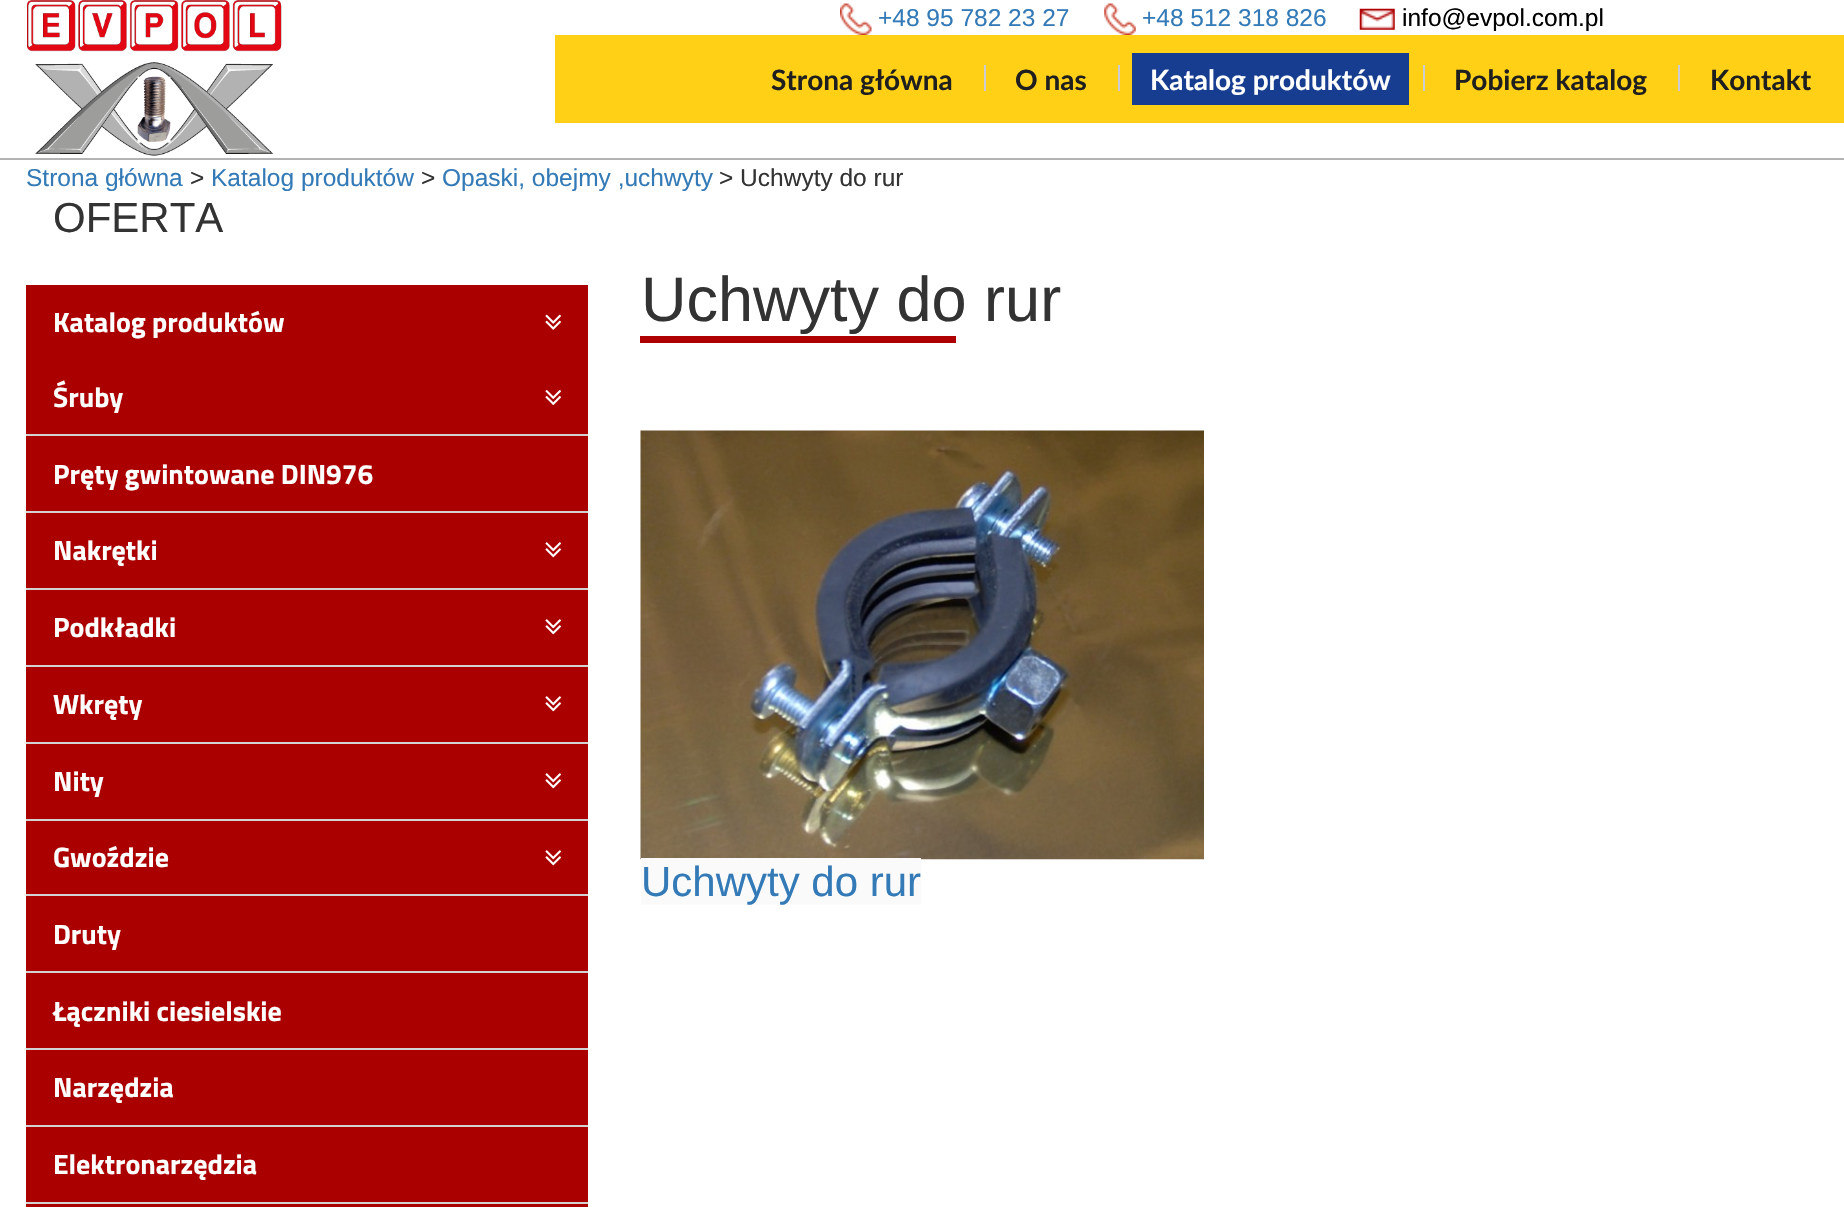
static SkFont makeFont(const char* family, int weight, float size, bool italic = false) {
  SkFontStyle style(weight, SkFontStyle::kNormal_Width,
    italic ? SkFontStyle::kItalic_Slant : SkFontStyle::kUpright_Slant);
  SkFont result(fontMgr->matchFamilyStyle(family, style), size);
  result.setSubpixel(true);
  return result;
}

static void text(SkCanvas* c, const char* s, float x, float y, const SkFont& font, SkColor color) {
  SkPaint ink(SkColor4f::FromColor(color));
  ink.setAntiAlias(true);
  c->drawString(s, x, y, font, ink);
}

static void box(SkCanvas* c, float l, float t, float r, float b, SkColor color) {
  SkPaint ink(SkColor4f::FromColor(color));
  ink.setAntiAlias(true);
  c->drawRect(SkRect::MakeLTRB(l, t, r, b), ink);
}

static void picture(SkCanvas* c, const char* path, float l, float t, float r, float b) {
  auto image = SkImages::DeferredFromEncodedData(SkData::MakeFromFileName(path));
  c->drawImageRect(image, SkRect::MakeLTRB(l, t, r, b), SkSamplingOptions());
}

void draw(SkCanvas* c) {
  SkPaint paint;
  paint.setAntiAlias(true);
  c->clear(0xffffffff);
  picture(c, "img_01.png", 27, 0, 282, 156);
  picture(c, "img_02.png", 840, 3, 872, 35);
  SkFont face1 = makeFont("Liberation Sans", 400, 24.5f);
  text(c, "+48 95 782 23 27", 878, 26, face1, 0xff337ab7);
  picture(c, "img_03.png", 1104, 3, 1136, 35);
  text(c, "+48 512 318 826", 1142, 26, face1, 0xff337ab7);
  picture(c, "img_04.png", 1359, 8, 1395, 30);
  text(c, "info@evpol.com.pl", 1402, 26, face1, 0xff000000);
  box(c, 555, 35, 1844, 123, 0xffffd016);
  SkFont face2 = makeFont("Lato", 700, 28);
  text(c, "Strona główna", 771, 90, face2, 0xff1f1f1f);
  box(c, 984, 65, 986, 91, 0xffcdccd2);
  text(c, "O nas", 1015, 90, face2, 0xff1f1f1f);
  box(c, 1118, 65, 1120, 91, 0xffcdccd2);
  box(c, 1132, 53, 1409, 105, 0xff163d90);
  text(c, "Katalog produktów", 1150, 90, face2, 0xffffffff);
  box(c, 1423, 65, 1425, 91, 0xffcdccd2);
  text(c, "Pobierz katalog", 1454, 90, face2, 0xff1f1f1f);
  box(c, 1678, 65, 1680, 91, 0xffcdccd2);
  text(c, "Kontakt", 1710, 90, face2, 0xff1f1f1f);
  box(c, 0, 158, 1844, 160, 0xffb3b3b3);
  text(c, "Strona główna", 26, 186, face1, 0xff337ab7);
  text(c, ">", 190, 186, face1, 0xff333333);
  text(c, "Katalog produktów", 211, 186, face1, 0xff337ab7);
  text(c, ">", 421, 186, face1, 0xff333333);
  text(c, "Opaski, obejmy ,uchwyty", 442, 186, face1, 0xff337ab7);
  text(c, "> Uchwyty do rur", 719, 186, face1, 0xff333333);
  SkFont face3 = makeFont("Liberation Sans", 400, 42);
  text(c, "OFERTA", 53, 232, face3, 0xff333333);
  box(c, 26, 285, 588, 434, 0xffab0000);
  SkFont face4 = makeFont("Titillium Web", 700, 28);
  text(c, "Katalog produktów", 53, 332, face4, 0xffffffff);
  picture(c, "img_05.png", 545, 314, 561, 330);
  box(c, 26, 434, 588, 436, 0xffd2d2d2);
  text(c, "Śruby", 53, 407, face4, 0xffffffff);
  picture(c, "img_06.png", 545, 390, 561, 405);
  box(c, 26, 436, 588, 511, 0xffab0000);
  box(c, 26, 511, 588, 513, 0xffd2d2d2);
  text(c, "Pręty gwintowane DIN976", 53, 484, face4, 0xffffffff);
  box(c, 26, 513, 588, 588, 0xffab0000);
  box(c, 26, 588, 588, 590, 0xffd2d2d2);
  text(c, "Nakrętki", 53, 560, face4, 0xffffffff);
  picture(c, "img_07.png", 545, 542, 561, 558);
  box(c, 26, 590, 588, 665, 0xffab0000);
  box(c, 26, 665, 588, 667, 0xffd2d2d2);
  text(c, "Podkładki", 53, 637, face4, 0xffffffff);
  picture(c, "img_07.png", 545, 619, 561, 635);
  box(c, 26, 667, 588, 742, 0xffab0000);
  box(c, 26, 742, 588, 744, 0xffd2d2d2);
  text(c, "Wkręty", 53, 714, face4, 0xffffffff);
  picture(c, "img_07.png", 545, 696, 561, 712);
  box(c, 26, 744, 588, 819, 0xffab0000);
  box(c, 26, 819, 588, 821, 0xffd2d2d2);
  text(c, "Nity", 53, 791, face4, 0xffffffff);
  picture(c, "img_07.png", 545, 773, 561, 789);
  box(c, 26, 821, 588, 894, 0xffab0000);
  box(c, 26, 894, 588, 896, 0xffd2d2d2);
  text(c, "Gwoździe", 53, 867, face4, 0xffffffff);
  picture(c, "img_07.png", 545, 850, 561, 866);
  box(c, 26, 896, 588, 971, 0xffab0000);
  box(c, 26, 971, 588, 973, 0xffd2d2d2);
  text(c, "Druty", 53, 944, face4, 0xffffffff);
  box(c, 26, 973, 588, 1048, 0xffab0000);
  box(c, 26, 1048, 588, 1050, 0xffd2d2d2);
  text(c, "Łączniki ciesielskie", 53, 1021, face4, 0xffffffff);
  box(c, 26, 1050, 588, 1125, 0xffab0000);
  box(c, 26, 1125, 588, 1127, 0xffd2d2d2);
  text(c, "Narzędzia", 53, 1097, face4, 0xffffffff);
  box(c, 26, 1127, 588, 1202, 0xffab0000);
  box(c, 26, 1202, 588, 1204, 0xffd2d2d2);
  text(c, "Elektronarzędzia", 53, 1174, face4, 0xffffffff);
  box(c, 26, 1204, 588, 1207, 0xffab0000);
  box(c, 640, 336, 956, 343, 0xffae0000);
  SkFont face5 = makeFont("Liberation Sans", 400, 63);
  text(c, "Uchwyty do rur", 641, 321, face5, 0xff333333);
  picture(c, "img_08.png", 640, 430, 1204, 860);
  box(c, 641, 858, 921, 905, 0xfffafafa);
  text(c, "Uchwyty do rur", 641, 896, face3, 0xff337ab7);
}
